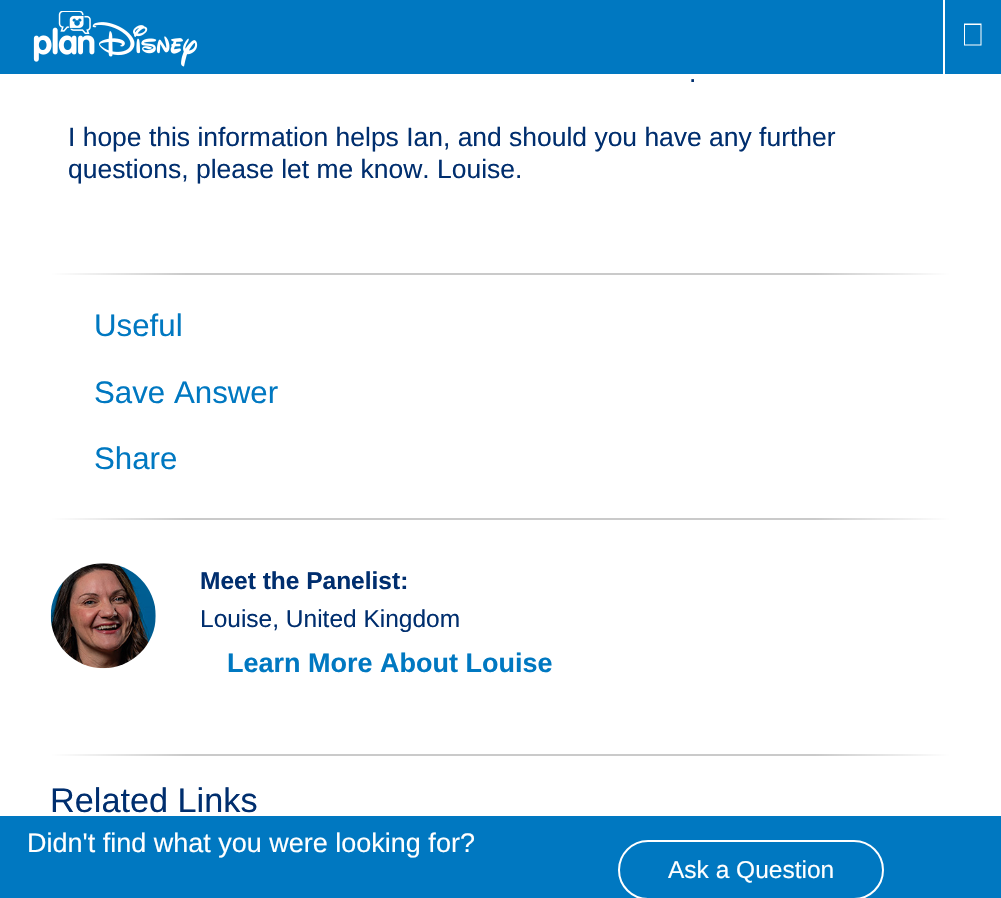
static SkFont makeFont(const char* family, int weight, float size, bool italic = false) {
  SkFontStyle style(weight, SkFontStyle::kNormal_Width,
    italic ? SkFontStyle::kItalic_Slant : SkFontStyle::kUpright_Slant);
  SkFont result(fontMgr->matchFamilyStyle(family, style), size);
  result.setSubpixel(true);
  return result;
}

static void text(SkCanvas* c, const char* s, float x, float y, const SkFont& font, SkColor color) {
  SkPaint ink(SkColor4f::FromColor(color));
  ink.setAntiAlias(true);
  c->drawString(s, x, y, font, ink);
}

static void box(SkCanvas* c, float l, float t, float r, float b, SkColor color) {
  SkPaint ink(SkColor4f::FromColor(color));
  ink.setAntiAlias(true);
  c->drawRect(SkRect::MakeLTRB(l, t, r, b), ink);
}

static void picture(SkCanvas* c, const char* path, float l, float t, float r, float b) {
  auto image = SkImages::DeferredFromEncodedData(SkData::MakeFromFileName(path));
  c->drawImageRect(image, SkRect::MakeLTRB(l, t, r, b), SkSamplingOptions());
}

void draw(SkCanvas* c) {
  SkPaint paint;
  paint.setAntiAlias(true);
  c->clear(0xffffffff);
  box(c, 0, 0, 1001, 74, 0xff0078c1);
  picture(c, "img_01.png", 33, 11, 198, 67);
  box(c, 943, 0, 945, 74, 0xffffffff);
  paint.setColor(0xffffffff);
  c->drawPath(SkPathBuilder().moveTo(964, 23.5f).lineTo(981.5f, 23.5f).lineTo(981.5f, 45.5f).lineTo(964, 45.5f).close().moveTo(965, 25).lineTo(965, 44.5f).lineTo(980.5f, 44.5f).lineTo(980.5f, 25).close().detach(), paint);
  SkFont face1 = makeFont("Liberation Sans", 400, 26.45f);
  text(c, ".", 689, 82, face1, 0xff002e6e);
  text(c, "I hope this information helps Ian, and should you have any further", 68, 146, face1, 0xff002e6e);
  text(c, "questions, please let me know. Louise.", 68, 178, face1, 0xff002e6e);
  {
    const SkColor colors[] = {0xffffffff, 0xffcacaca, 0xffcacaca, 0xffffffff};
    const float stops[] = {0, 0.15f, 0.85f, 1};
    const SkPoint ends[] = {{51, 274}, {950, 274}};
    paint.setShader(SkGradientShader::MakeLinear(ends, colors, stops, 4, SkTileMode::kClamp));
    paint.setAlpha(255);
  }
  c->drawRect(SkRect::MakeLTRB(51, 273, 950, 275), paint);
  SkFont face2 = makeFont("Liberation Sans", 400, 31.25f);
  text(c, "Useful", 94, 336, face2, 0xff0078c1);
  text(c, "Save Answer", 94, 403, face2, 0xff0078c1);
  text(c, "Share", 94, 469, face2, 0xff0078c1);
  {
    const SkColor colors[] = {0xffffffff, 0xffcacaca, 0xffcacaca, 0xffffffff};
    const float stops[] = {0, 0.15f, 0.85f, 1};
    const SkPoint ends[] = {{51, 519}, {950, 519}};
    paint.setShader(SkGradientShader::MakeLinear(ends, colors, stops, 4, SkTileMode::kClamp));
    paint.setAlpha(255);
  }
  c->drawRect(SkRect::MakeLTRB(51, 518, 950, 520), paint);
  picture(c, "img_02.png", 50, 563, 156, 669);
  SkFont face3 = makeFont("Liberation Sans", 700, 24.5f);
  text(c, "Meet the Panelist:", 200, 589, face3, 0xff002e6e);
  SkFont face4 = makeFont("Liberation Sans", 400, 24.5f);
  text(c, "Louise, United Kingdom", 200, 627, face4, 0xff002e6e);
  SkFont face5 = makeFont("Liberation Sans", 700, 27);
  text(c, "Learn More About Louise", 227, 672, face5, 0xff0078c1);
  {
    const SkColor colors[] = {0xffffffff, 0xffcacaca, 0xffcacaca, 0xffffffff};
    const float stops[] = {0, 0.15f, 0.85f, 1};
    const SkPoint ends[] = {{51, 755}, {950, 755}};
    paint.setShader(SkGradientShader::MakeLinear(ends, colors, stops, 4, SkTileMode::kClamp));
    paint.setAlpha(255);
  }
  c->drawRect(SkRect::MakeLTRB(51, 754, 950, 756), paint);
  SkFont face6 = makeFont("Liberation Sans", 400, 34.25f);
  text(c, "Related Links", 50, 812, face6, 0xff002e6e);
  box(c, 0, 816, 1001, 898, 0xff0078c1);
  SkFont face7 = makeFont("Liberation Sans", 400, 27);
  text(c, "Didn't find what you were looking for?", 27, 852, face7, 0xffffffff);
  paint.setStyle(SkPaint::kStroke_Style);
  paint.setStrokeWidth(2);
  paint.setShader(nullptr);
  paint.setColor(0xffffffff);
  c->drawRoundRect(SkRect::MakeLTRB(619, 841, 883, 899), 29, 29, paint);
  text(c, "Ask a Question", 668, 878, face4, 0xffffffff);
}
